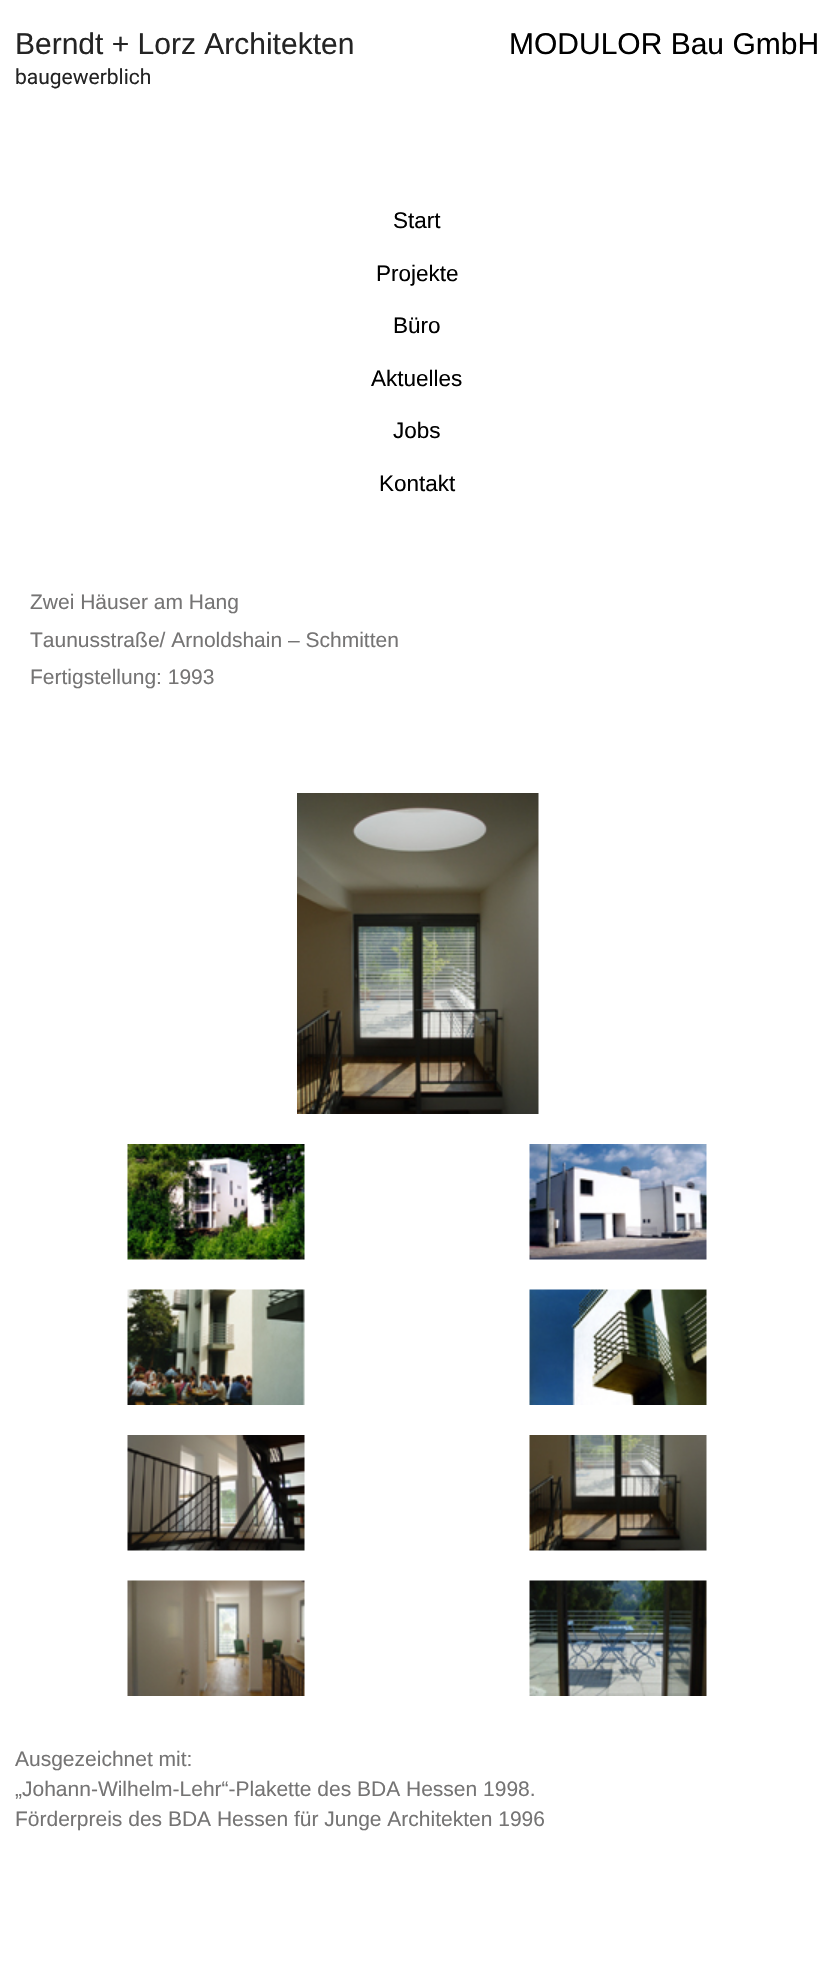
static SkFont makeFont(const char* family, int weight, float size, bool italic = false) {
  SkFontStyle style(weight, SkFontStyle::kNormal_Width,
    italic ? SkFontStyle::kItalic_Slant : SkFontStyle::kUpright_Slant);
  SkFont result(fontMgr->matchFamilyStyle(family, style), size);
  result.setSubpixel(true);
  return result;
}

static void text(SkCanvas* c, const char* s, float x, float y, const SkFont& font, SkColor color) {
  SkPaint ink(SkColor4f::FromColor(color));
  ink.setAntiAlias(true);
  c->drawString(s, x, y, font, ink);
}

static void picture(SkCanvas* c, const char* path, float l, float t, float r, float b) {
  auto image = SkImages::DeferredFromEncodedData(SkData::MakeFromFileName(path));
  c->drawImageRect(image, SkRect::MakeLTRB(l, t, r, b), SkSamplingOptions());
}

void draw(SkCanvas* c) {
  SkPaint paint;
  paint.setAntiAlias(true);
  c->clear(0xffffffff);
  SkFont face1 = makeFont("Liberation Sans", 400, 30);
  text(c, "Berndt + Lorz Architekten", 15, 54, face1, 0xff242424);
  SkFont face2 = makeFont("Roboto", 400, 21);
  text(c, "baugewerblich", 15, 84, face2, 0xff242424);
  text(c, "MODULOR Bau GmbH", 509, 54, face1, 0xff000000);
  SkFont face3 = makeFont("Liberation Sans", 400, 22.5f);
  text(c, "Start", 393, 228, face3, 0xff000000);
  text(c, "Projekte", 376, 281, face3, 0xff000000);
  text(c, "Büro", 393, 333, face3, 0xff000000);
  text(c, "Aktuelles", 371, 386, face3, 0xff000000);
  text(c, "Jobs", 393, 438, face3, 0xff000000);
  text(c, "Kontakt", 379, 491, face3, 0xff000000);
  SkFont face4 = makeFont("Liberation Sans", 400, 21);
  text(c, "Zwei Häuser am Hang", 30, 609, face4, 0xff757474);
  text(c, "Taunusstraße/ Arnoldshain – Schmitten", 30, 647, face4, 0xff757474);
  text(c, "Fertigstellung: 1993", 30, 684, face4, 0xff757474);
  picture(c, "img_01.png", 297, 793, 539, 1114);
  picture(c, "img_02.png", 127, 1144, 305, 1260);
  picture(c, "img_03.png", 127, 1289, 305, 1405);
  picture(c, "img_04.png", 127, 1435, 305, 1551);
  picture(c, "img_05.png", 127, 1580, 305, 1696);
  picture(c, "img_06.png", 529, 1144, 707, 1260);
  picture(c, "img_07.png", 529, 1289, 707, 1405);
  picture(c, "img_08.png", 529, 1435, 707, 1551);
  picture(c, "img_09.png", 529, 1580, 707, 1696);
  text(c, "Ausgezeichnet mit:", 15, 1766, face4, 0xff757474);
  text(c, "„Johann-Wilhelm-Lehr“-Plakette des BDA Hessen 1998.", 15, 1796, face4, 0xff757474);
  text(c, "Förderpreis des BDA Hessen für Junge Architekten 1996", 15, 1826, face4, 0xff757474);
}
